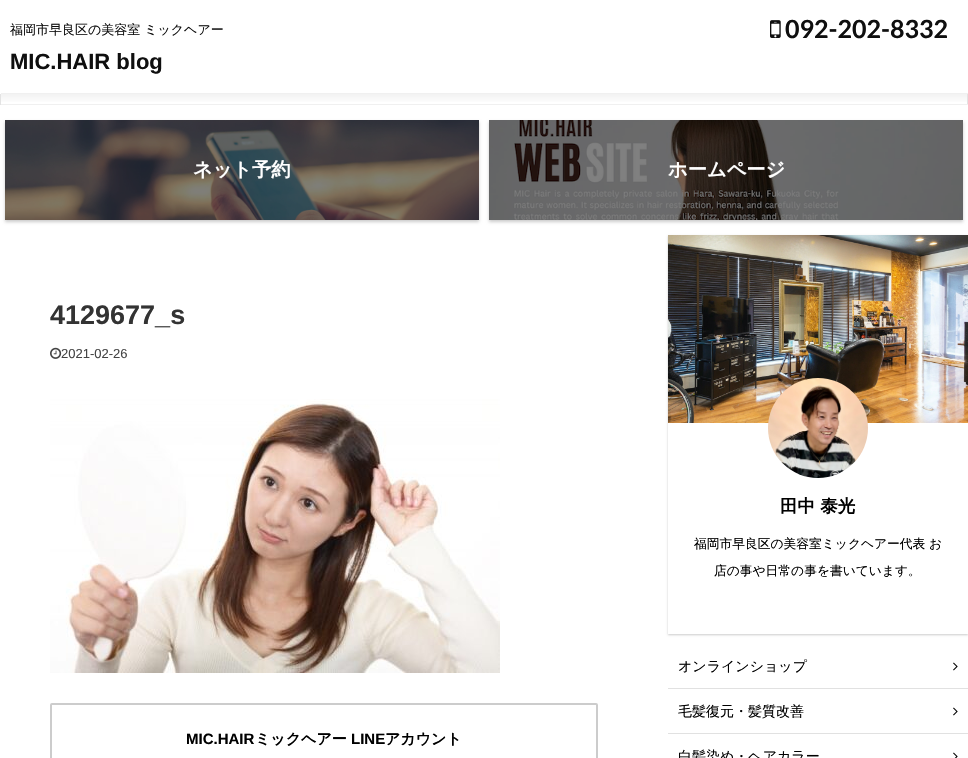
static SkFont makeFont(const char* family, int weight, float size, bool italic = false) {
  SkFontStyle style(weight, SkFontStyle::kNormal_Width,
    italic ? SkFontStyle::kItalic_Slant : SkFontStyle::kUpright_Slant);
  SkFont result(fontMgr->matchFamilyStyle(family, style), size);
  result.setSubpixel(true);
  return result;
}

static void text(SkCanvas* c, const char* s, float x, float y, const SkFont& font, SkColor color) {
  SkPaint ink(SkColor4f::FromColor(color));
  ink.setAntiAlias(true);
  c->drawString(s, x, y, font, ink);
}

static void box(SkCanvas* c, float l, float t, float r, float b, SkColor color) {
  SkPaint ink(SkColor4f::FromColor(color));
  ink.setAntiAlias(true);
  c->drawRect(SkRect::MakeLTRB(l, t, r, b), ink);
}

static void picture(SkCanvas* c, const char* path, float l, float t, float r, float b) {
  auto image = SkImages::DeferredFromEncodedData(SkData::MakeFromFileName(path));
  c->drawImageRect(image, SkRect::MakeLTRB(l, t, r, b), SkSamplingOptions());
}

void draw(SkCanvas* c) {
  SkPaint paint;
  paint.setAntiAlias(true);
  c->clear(0xffffffff);
  SkFont face1 = makeFont("WenQuanYi Zen Hei", 500, 13);
  text(c, "福岡市早良区の美容室 ミックヘアー", 10, 34, face1, 0xff0f0f0f);
  SkFont face2 = makeFont("Liberation Sans", 700, 22);
  text(c, "MIC.HAIR blog", 10, 69, face2, 0xff0f0f0f);
  picture(c, "img_01.png", 770, 20, 781, 38);
  SkFont face3 = makeFont("Lato", 700, 25);
  text(c, "092-202-8332", 785, 38, face3, 0xff0f0f0f);
  {
    const SkColor colors[] = {0xfff2f2f2, 0xffffffff};
    const float stops[] = {0, 1};
    const SkPoint ends[] = {{484, 94}, {484, 104}};
    paint.setShader(SkGradientShader::MakeLinear(ends, colors, stops, 2, SkTileMode::kClamp));
    paint.setAlpha(255);
  }
  c->drawRect(SkRect::MakeLTRB(1, 94, 967, 102), paint);
  box(c, 1, 93, 968, 94, 0xfff0f0f0);
  box(c, 967, 94, 968, 105, 0xffe3e3e3);
  box(c, 1, 104, 968, 105, 0xfff0f0f0);
  box(c, 0, 94, 1, 105, 0xffe3e3e3);
  paint.setShader(nullptr);
  paint.setColor(0x33000000);
  paint.setMaskFilter(SkMaskFilter::MakeBlur(kNormal_SkBlurStyle, 1.5f));
  c->drawRect(SkRect::MakeLTRB(5, 122, 479, 222), paint);
  paint.setMaskFilter(nullptr);
  picture(c, "img_02.png", 5, 120, 479, 220);
  SkFont face4 = makeFont("WenQuanYi Zen Hei", 700, 19.25f);
  text(c, "ネット予約", 193, 176, face4, 0xffffffff);
  paint.setMaskFilter(SkMaskFilter::MakeBlur(kNormal_SkBlurStyle, 1.5f));
  c->drawRect(SkRect::MakeLTRB(489, 122, 963, 222), paint);
  paint.setMaskFilter(nullptr);
  picture(c, "img_03.png", 489, 120, 963, 220);
  text(c, "ホームページ", 668, 176, face4, 0xffffffff);
  SkFont face5 = makeFont("Liberation Sans", 700, 27);
  text(c, "4129677_s", 50, 324, face5, 0xff333333);
  picture(c, "img_04.png", 50, 347, 62, 359);
  SkFont face6 = makeFont("Liberation Sans", 400, 13);
  text(c, "2021-02-26", 61, 358, face6, 0xff444444);
  picture(c, "img_05.png", 50, 399, 500, 673);
  paint.setStyle(SkPaint::kStroke_Style);
  paint.setStrokeWidth(2);
  paint.setColor(0xffcccccc);
  c->drawRoundRect(SkRect::MakeLTRB(51, 704, 597, 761), 1, 1, paint);
  SkFont face7 = makeFont("Liberation Sans", 700, 15);
  text(c, "MIC.HAIR", 186, 744, face7, 0xff000000);
  SkFont face8 = makeFont("WenQuanYi Zen Hei", 700, 15);
  text(c, "ミックヘアー", 255, 744, face8, 0xff000000);
  text(c, "LINE", 351, 744, face7, 0xff000000);
  text(c, "アカウント", 385, 744, face8, 0xff000000);
  c->save();
  c->clipPath(SkPathBuilder(SkPathFillType::kEvenOdd).moveTo(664, 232).lineTo(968, 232).lineTo(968, 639).lineTo(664, 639).close().moveTo(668, 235).lineTo(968, 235).lineTo(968, 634).lineTo(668, 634).close().detach(), true);
  paint.setStyle(SkPaint::kFill_Style);
  paint.setColor(0x33000000);
  paint.setMaskFilter(SkMaskFilter::MakeBlur(kNormal_SkBlurStyle, 1));
  c->drawRect(SkRect::MakeLTRB(668, 236, 968, 635), paint);
  paint.setMaskFilter(nullptr);
  c->restore();
  picture(c, "img_06.png", 668, 235, 968, 423);
  picture(c, "img_07.png", 768, 378, 868, 478);
  SkFont face9 = makeFont("WenQuanYi Zen Hei", 700, 17.5f);
  text(c, "田中 泰光", 780, 512, face9, 0xff000000);
  SkFont face10 = makeFont("WenQuanYi Zen Hei", 500, 12.75f);
  text(c, "福岡市早良区の美容室ミックヘアー代表 お", 694, 548, face10, 0xff000000);
  text(c, "店の事や日常の事を書いています。", 714, 575, face10, 0xff000000);
  box(c, 668, 688, 968, 689, 0xffe1e1e1);
  SkFont face11 = makeFont("WenQuanYi Zen Hei", 500, 14);
  text(c, "オンラインショップ", 678, 671, face11, 0xff000000);
  picture(c, "img_08.png", 953, 662, 958, 671);
  box(c, 668, 733, 968, 734, 0xffe1e1e1);
  text(c, "毛髪復元・髪質改善", 678, 716, face11, 0xff000000);
  picture(c, "img_08.png", 953, 707, 958, 716);
  text(c, "白髪染め・ヘアカラー", 678, 761, face11, 0xff000000);
  picture(c, "img_09.png", 953, 752, 958, 758);
}
